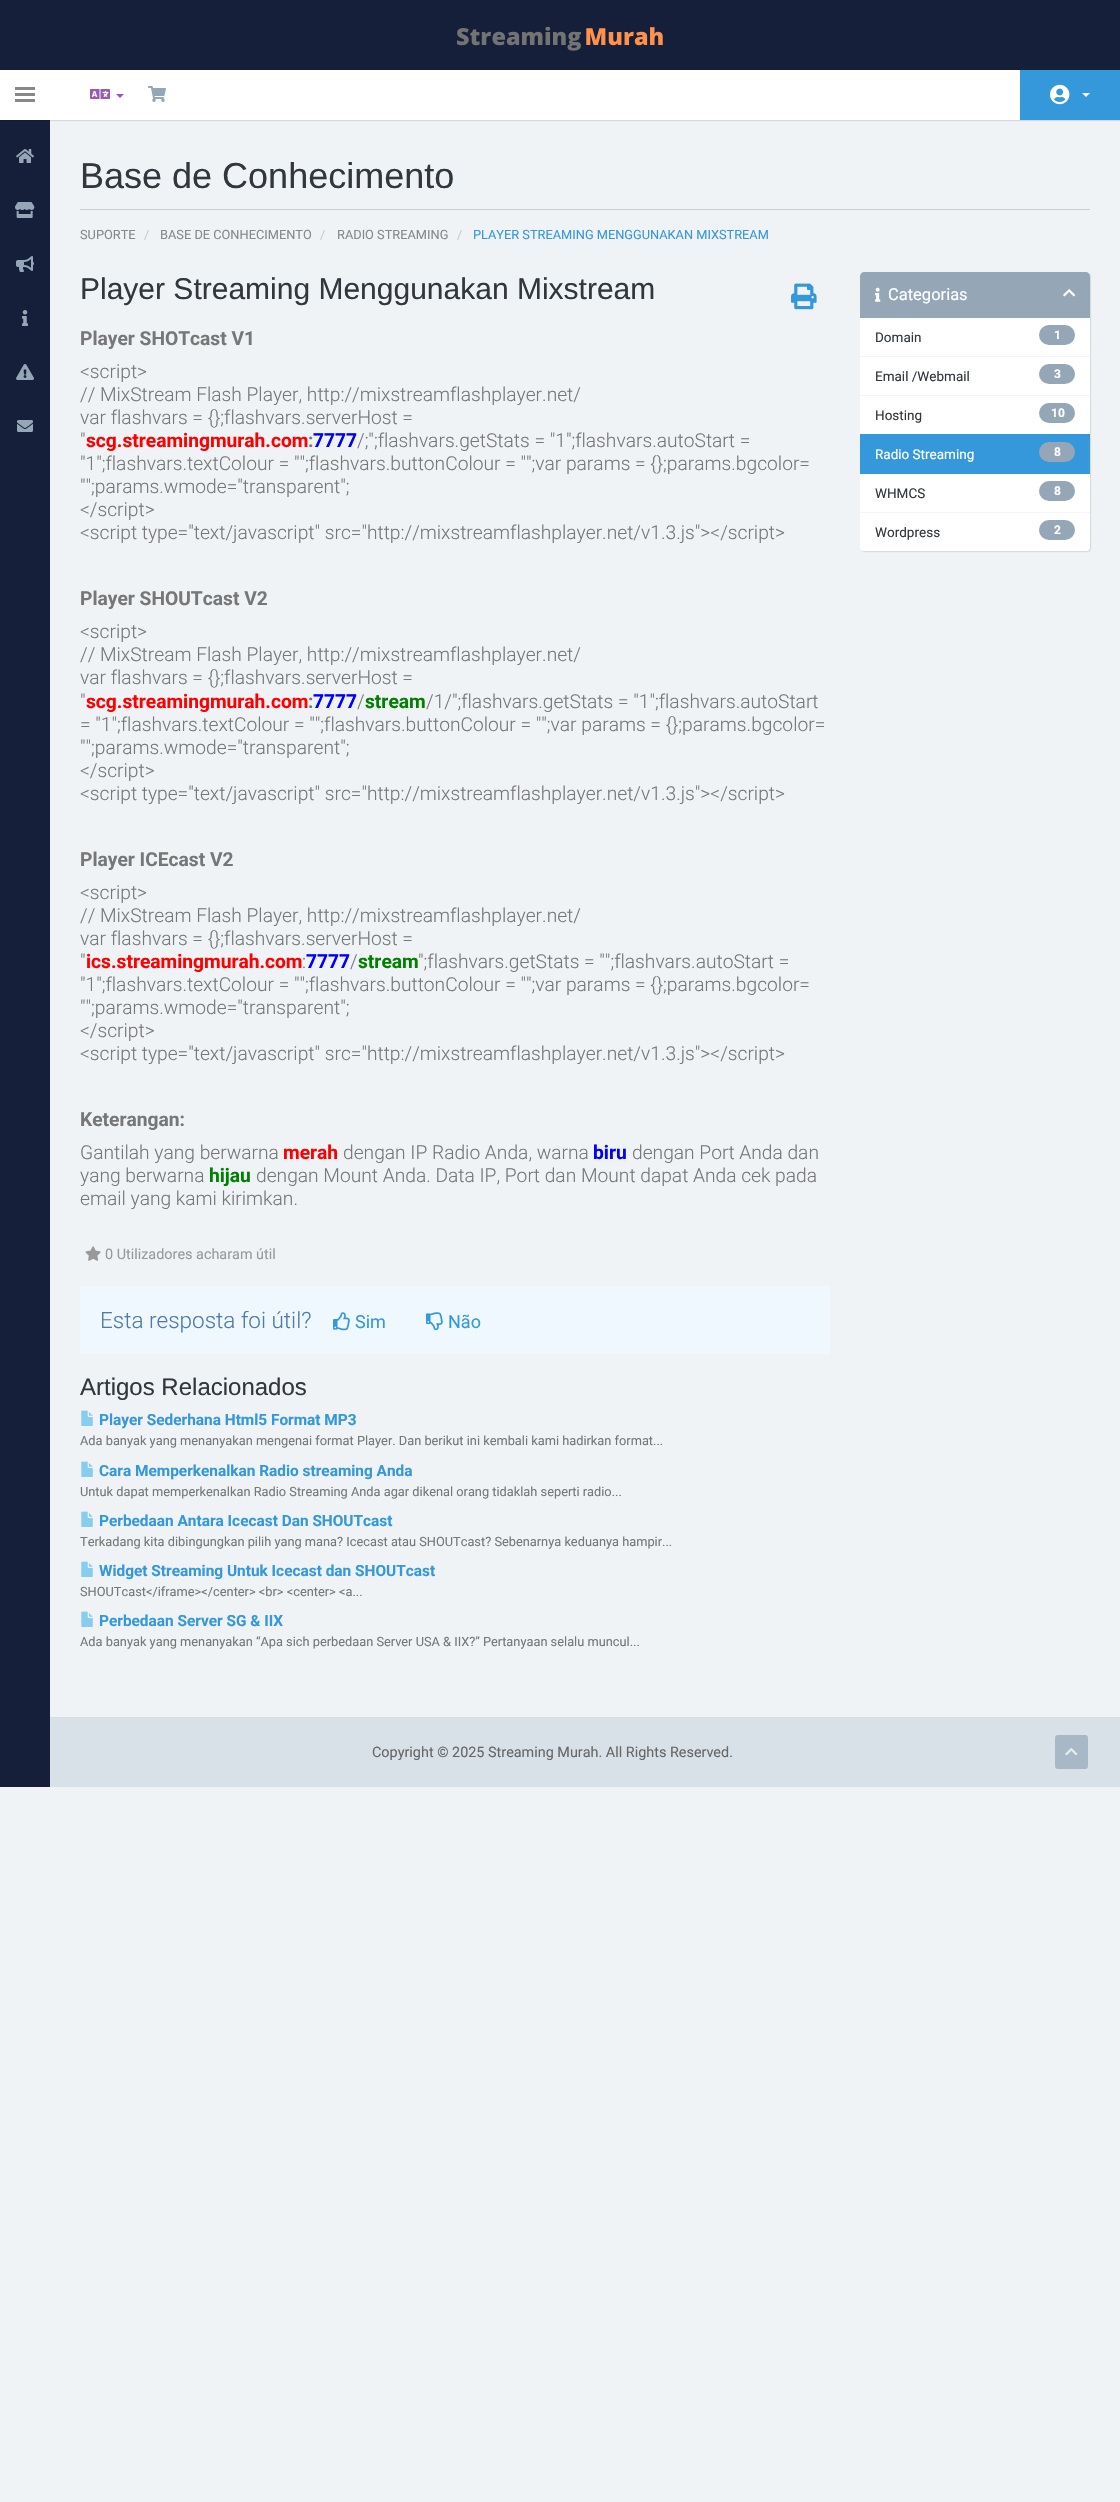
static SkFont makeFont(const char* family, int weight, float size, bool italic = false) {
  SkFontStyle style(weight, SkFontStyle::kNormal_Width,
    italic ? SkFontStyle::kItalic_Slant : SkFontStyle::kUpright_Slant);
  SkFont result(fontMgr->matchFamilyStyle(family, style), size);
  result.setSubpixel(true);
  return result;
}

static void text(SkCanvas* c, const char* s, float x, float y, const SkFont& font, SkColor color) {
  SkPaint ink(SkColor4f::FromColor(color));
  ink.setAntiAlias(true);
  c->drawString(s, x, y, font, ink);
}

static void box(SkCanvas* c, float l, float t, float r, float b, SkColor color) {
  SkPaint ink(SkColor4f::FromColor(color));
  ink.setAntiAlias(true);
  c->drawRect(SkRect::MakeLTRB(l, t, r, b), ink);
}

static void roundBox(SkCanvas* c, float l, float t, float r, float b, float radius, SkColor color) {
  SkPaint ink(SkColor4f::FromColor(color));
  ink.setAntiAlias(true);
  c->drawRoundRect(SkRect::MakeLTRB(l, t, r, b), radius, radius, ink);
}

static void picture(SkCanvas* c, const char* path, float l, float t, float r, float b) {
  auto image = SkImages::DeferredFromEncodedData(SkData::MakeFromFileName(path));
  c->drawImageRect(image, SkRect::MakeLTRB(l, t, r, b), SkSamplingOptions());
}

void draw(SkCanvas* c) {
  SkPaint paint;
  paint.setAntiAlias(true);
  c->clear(0xffeff3f6);
  box(c, 0, 120, 50, 1787, 0xff151f3a);
  paint.setColor(0x1a000000);
  paint.setMaskFilter(SkMaskFilter::MakeBlur(kNormal_SkBlurStyle, 0.5f));
  c->drawRect(SkRect::MakeLTRB(1, 1, 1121, 121), paint);
  paint.setMaskFilter(nullptr);
  box(c, 0, 70, 1020, 120, 0xffffffff);
  box(c, 0, 0, 1120, 70, 0xff151f3a);
  picture(c, "img_01.png", 457, 26, 663, 51);
  box(c, 15, 87, 35, 90, 0xff888888);
  box(c, 15, 93, 35, 96, 0xff888888);
  box(c, 15, 99, 35, 102, 0xff888888);
  picture(c, "img_02.png", 90, 89, 110, 99);
  paint.setColor(0xff9a59b5);
  c->drawPath(SkPathBuilder().moveTo(116, 94).lineTo(124, 94).lineTo(120, 98).close().detach(), paint);
  picture(c, "img_03.png", 148, 86, 166, 102);
  box(c, 1020, 70, 1120, 120, 0xff3598db);
  picture(c, "img_04.png", 1050, 84, 1070, 105);
  paint.setColor(0xffffffff);
  c->drawPath(SkPathBuilder().moveTo(1082, 93).lineTo(1090, 93).lineTo(1086, 97).close().detach(), paint);
  picture(c, "img_05.png", 16, 149, 34, 163);
  picture(c, "img_06.png", 15, 202, 35, 218);
  picture(c, "img_07.png", 16, 256, 34, 272);
  picture(c, "img_08.png", 22, 310, 28, 326);
  picture(c, "img_09.png", 16, 364, 34, 380);
  picture(c, "img_10.png", 17, 420, 33, 432);
  box(c, 80, 209, 1090, 210, 0xffcccccc);
  SkFont face1 = makeFont("Liberation Sans", 400, 36);
  text(c, "Base de Conhecimento", 80, 188, face1, 0xff31373d);
  SkFont face2 = makeFont("Roboto", 400, 12.8f);
  text(c, "SUPORTE", 80, 239, face2, 0xff888888);
  text(c, "/", 144, 239, face2, 0xffcccccc);
  text(c, "BASE DE CONHECIMENTO", 160, 239, face2, 0xff888888);
  text(c, "/", 320, 239, face2, 0xffcccccc);
  text(c, "RADIO STREAMING", 337, 239, face2, 0xff888888);
  text(c, "/", 457, 239, face2, 0xffcccccc);
  text(c, "PLAYER STREAMING MENGGUNAKAN MIXSTREAM", 473, 239, face2, 0xff3598db);
  SkFont face3 = makeFont("Liberation Sans", 400, 30);
  text(c, "Player Streaming Menggunakan Mixstream", 80, 299, face3, 0xff31373d);
  picture(c, "img_11.png", 791, 283, 817, 310);
  SkFont face4 = makeFont("Roboto", 700, 19.2f);
  text(c, "Player SHOTcast V1", 80, 345, face4, 0xff777777);
  SkFont face5 = makeFont("Roboto", 300, 19.2f);
  text(c, "<script>", 80, 378, face5, 0xff777777);
  text(c, "// MixStream Flash Player, http://mixstreamflashplayer.net/", 80, 401, face5, 0xff777777);
  text(c, "var flashvars = {};flashvars.serverHost =", 80, 424, face5, 0xff777777);
  text(c, "\"", 80, 447, face5, 0xff777777);
  text(c, "scg.streamingmurah.com", 86, 447, face4, 0xffff0000);
  text(c, ":", 308, 447, face4, 0xff777777);
  text(c, "7777", 313, 447, face4, 0xff0000ff);
  text(c, "/;\";flashvars.getStats = \"1\";flashvars.autoStart =", 357, 447, face5, 0xff777777);
  text(c, "\"1\";flashvars.textColour = \"\";flashvars.buttonColour = \"\";var params = {};params.bgcolor=", 80, 470, face5, 0xff777777);
  text(c, "\"\";params.wmode=\"transparent\";", 80, 493, face5, 0xff777777);
  text(c, "</script>", 80, 516, face5, 0xff777777);
  text(c, "<script type=\"text/javascript\" src=\"http://mixstreamflashplayer.net/v1.3.js\"></script>", 80, 539, face5, 0xff777777);
  text(c, "Player SHOUTcast V2", 80, 605, face4, 0xff777777);
  text(c, "<script>", 80, 638, face5, 0xff777777);
  text(c, "// MixStream Flash Player, http://mixstreamflashplayer.net/", 80, 661, face5, 0xff777777);
  text(c, "var flashvars = {};flashvars.serverHost =", 80, 684, face5, 0xff777777);
  text(c, "\"", 80, 708, face5, 0xff777777);
  text(c, "scg.streamingmurah.com", 86, 708, face4, 0xffff0000);
  text(c, ":", 308, 708, face4, 0xff777777);
  text(c, "7777", 313, 708, face4, 0xff0000ff);
  text(c, "/", 357, 708, face5, 0xff777777);
  text(c, "stream", 365, 708, face4, 0xff008000);
  text(c, "/1/\";flashvars.getStats = \"1\";flashvars.autoStart", 426, 708, face5, 0xff777777);
  text(c, "= \"1\";flashvars.textColour = \"\";flashvars.buttonColour = \"\";var params = {};params.bgcolor=", 80, 731, face5, 0xff777777);
  text(c, "\"\";params.wmode=\"transparent\";", 80, 754, face5, 0xff777777);
  text(c, "</script>", 80, 777, face5, 0xff777777);
  text(c, "<script type=\"text/javascript\" src=\"http://mixstreamflashplayer.net/v1.3.js\"></script>", 80, 800, face5, 0xff777777);
  text(c, "Player ICEcast V2", 80, 866, face4, 0xff777777);
  text(c, "<script>", 80, 899, face5, 0xff777777);
  text(c, "// MixStream Flash Player, http://mixstreamflashplayer.net/", 80, 922, face5, 0xff777777);
  text(c, "var flashvars = {};flashvars.serverHost =", 80, 945, face5, 0xff777777);
  text(c, "\"", 80, 968, face5, 0xff777777);
  text(c, "ics.streamingmurah.com", 86, 968, face4, 0xffff0000);
  text(c, ":", 302, 968, face5, 0xff777777);
  text(c, "7777", 306, 968, face4, 0xff0000ff);
  text(c, "/", 350, 968, face5, 0xff777777);
  text(c, "stream", 358, 968, face4, 0xff008000);
  text(c, "\";flashvars.getStats = \"\";flashvars.autoStart =", 418, 968, face5, 0xff777777);
  text(c, "\"1\";flashvars.textColour = \"\";flashvars.buttonColour = \"\";var params = {};params.bgcolor=", 80, 991, face5, 0xff777777);
  text(c, "\"\";params.wmode=\"transparent\";", 80, 1014, face5, 0xff777777);
  text(c, "</script>", 80, 1037, face5, 0xff777777);
  text(c, "<script type=\"text/javascript\" src=\"http://mixstreamflashplayer.net/v1.3.js\"></script>", 80, 1060, face5, 0xff777777);
  text(c, "Keterangan:", 80, 1126, face4, 0xff777777);
  text(c, "Gantilah yang berwarna", 80, 1159, face5, 0xff777777);
  text(c, "merah", 283, 1159, face4, 0xffff0000);
  text(c, "dengan IP Radio Anda, warna", 343, 1159, face5, 0xff777777);
  text(c, "biru", 593, 1159, face4, 0xff0000ff);
  text(c, "dengan Port Anda dan", 632, 1159, face5, 0xff777777);
  text(c, "yang berwarna", 80, 1182, face5, 0xff777777);
  text(c, "hijau", 209, 1182, face4, 0xff008000);
  text(c, "dengan Mount Anda. Data IP, Port dan Mount dapat Anda cek pada", 256, 1182, face5, 0xff777777);
  text(c, "email yang kami kirimkan.", 80, 1205, face5, 0xff777777);
  picture(c, "img_12.png", 85, 1246, 101, 1261);
  SkFont face6 = makeFont("Roboto", 400, 14.4f);
  text(c, "0 Utilizadores acharam útil", 105, 1259, face6, 0xff999999);
  box(c, 80, 1286, 830, 1354, 0xffeff7ff);
  SkFont face7 = makeFont("Roboto", 300, 22.5f);
  text(c, "Esta resposta foi útil?", 100, 1328, face7, 0xff4d7cab);
  picture(c, "img_13.png", 333, 1312, 350, 1331);
  SkFont face8 = makeFont("Roboto", 400, 18);
  text(c, "Sim", 355, 1328, face8, 0xff3598db);
  picture(c, "img_14.png", 426, 1312, 443, 1331);
  text(c, "Não", 448, 1328, face8, 0xff3598db);
  SkFont face9 = makeFont("Liberation Sans", 400, 24);
  text(c, "Artigos Relacionados", 80, 1395, face9, 0xff31373d);
  picture(c, "img_15.png", 81, 1410, 93, 1426);
  SkFont face10 = makeFont("Roboto", 700, 15.4f);
  text(c, "Player Sederhana Html5 Format MP3", 99, 1425, face10, 0xff3598db);
  text(c, "Ada banyak yang menanyakan mengenai format Player. Dan berikut ini kembali kami hadirkan format...", 80, 1445, face2, 0xff777777);
  picture(c, "img_15.png", 81, 1461, 93, 1477);
  text(c, "Cara Memperkenalkan Radio streaming Anda", 99, 1476, face10, 0xff3598db);
  text(c, "Untuk dapat memperkenalkan Radio Streaming Anda agar dikenal orang tidaklah seperti radio...", 80, 1496, face2, 0xff777777);
  picture(c, "img_15.png", 81, 1511, 93, 1527);
  text(c, "Perbedaan Antara Icecast Dan SHOUTcast", 99, 1526, face10, 0xff3598db);
  text(c, "Terkadang kita dibingungkan pilih yang mana? Icecast atau SHOUTcast? Sebenarnya keduanya hampir...", 80, 1546, face2, 0xff777777);
  picture(c, "img_15.png", 81, 1561, 93, 1577);
  text(c, "Widget Streaming Untuk Icecast dan SHOUTcast", 99, 1576, face10, 0xff3598db);
  text(c, "SHOUTcast</iframe></center> <br> <center> <a...", 80, 1596, face2, 0xff777777);
  picture(c, "img_15.png", 81, 1611, 93, 1627);
  text(c, "Perbedaan Server SG & IIX", 99, 1626, face10, 0xff3598db);
  text(c, "Ada banyak yang menanyakan “Apa sich perbedaan Server USA & IIX?” Pertanyaan selalu muncul...", 80, 1646, face2, 0xff777777);
  paint.setColor(0x1a000000);
  paint.setMaskFilter(SkMaskFilter::MakeBlur(kNormal_SkBlurStyle, 0.5f));
  c->drawRoundRect(SkRect::MakeLTRB(861, 273, 1091, 552), 4, 4, paint);
  paint.setMaskFilter(nullptr);
  roundBox(c, 860, 272, 1090, 551, 4, 0xffffffff);
  paint.setColor(0xff95a7b7);
  c->drawPath(SkPathBuilder().moveTo(864, 272).lineTo(1086, 272).cubicTo(1088, 272, 1090, 274, 1090, 276).lineTo(1090, 318).lineTo(860, 318).lineTo(860, 276).cubicTo(860, 274, 862, 272, 864, 272).close().detach(), paint);
  picture(c, "img_16.png", 875, 287, 881, 302);
  SkFont face11 = makeFont("Roboto", 400, 16.5f);
  text(c, "Categorias", 888, 300, face11, 0xffffffff);
  picture(c, "img_17.png", 1063, 289, 1075, 297);
  box(c, 860, 356, 1090, 357, 0xfff5f5f5);
  SkFont face12 = makeFont("Roboto", 400, 13.5f);
  text(c, "Domain", 875, 342, face12, 0xff31373d);
  roundBox(c, 1039, 325, 1075, 345, 10, 0xff95a7b7);
  SkFont face13 = makeFont("Roboto", 700, 12);
  text(c, "1", 1054, 339, face13, 0xffffffff);
  box(c, 860, 395, 1090, 396, 0xfff5f5f5);
  text(c, "Email /Webmail", 875, 381, face12, 0xff31373d);
  roundBox(c, 1039, 364, 1075, 384, 10, 0xff95a7b7);
  text(c, "3", 1054, 378, face13, 0xffffffff);
  text(c, "Hosting", 875, 420, face12, 0xff31373d);
  roundBox(c, 1039, 403, 1075, 423, 10, 0xff95a7b7);
  text(c, "10", 1051, 417, face13, 0xffffffff);
  box(c, 860, 434, 1090, 474, 0xff3598db);
  text(c, "Radio Streaming", 875, 459, face12, 0xffffffff);
  roundBox(c, 1039, 442, 1075, 462, 10, 0xff95a7b7);
  text(c, "8", 1054, 456, face13, 0xffffffff);
  text(c, "WHMCS", 875, 498, face12, 0xff31373d);
  roundBox(c, 1039, 481, 1075, 501, 10, 0xff95a7b7);
  text(c, "8", 1054, 495, face13, 0xffffffff);
  paint.setColor(0xffffffff);
  c->drawPath(SkPathBuilder().moveTo(860, 512).lineTo(1090, 512).lineTo(1090, 547).cubicTo(1090, 549, 1088, 551, 1086, 551).lineTo(864, 551).cubicTo(862, 551, 860, 549, 860, 547).close().detach(), paint);
  box(c, 860, 512, 1090, 513, 0xfff5f5f5);
  text(c, "Wordpress", 875, 537, face12, 0xff31373d);
  roundBox(c, 1039, 520, 1075, 540, 10, 0xff95a7b7);
  text(c, "2", 1054, 534, face13, 0xffffffff);
  box(c, 50, 1718, 1120, 1787, 0xffd9e1e8);
  box(c, 50, 1717, 1120, 1718, 0xffdddddd);
  text(c, "Copyright © 2025 Streaming Murah. All Rights Reserved.", 372, 1757, face6, 0xff666666);
  roundBox(c, 1055, 1735, 1088, 1769, 3, 0xffa9b8c6);
  picture(c, "img_18.png", 1065, 1748, 1078, 1756);
}
